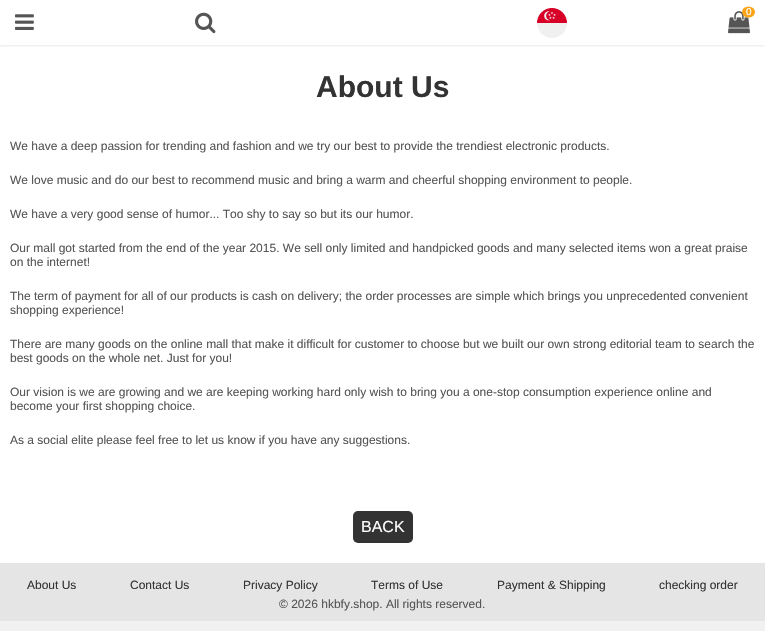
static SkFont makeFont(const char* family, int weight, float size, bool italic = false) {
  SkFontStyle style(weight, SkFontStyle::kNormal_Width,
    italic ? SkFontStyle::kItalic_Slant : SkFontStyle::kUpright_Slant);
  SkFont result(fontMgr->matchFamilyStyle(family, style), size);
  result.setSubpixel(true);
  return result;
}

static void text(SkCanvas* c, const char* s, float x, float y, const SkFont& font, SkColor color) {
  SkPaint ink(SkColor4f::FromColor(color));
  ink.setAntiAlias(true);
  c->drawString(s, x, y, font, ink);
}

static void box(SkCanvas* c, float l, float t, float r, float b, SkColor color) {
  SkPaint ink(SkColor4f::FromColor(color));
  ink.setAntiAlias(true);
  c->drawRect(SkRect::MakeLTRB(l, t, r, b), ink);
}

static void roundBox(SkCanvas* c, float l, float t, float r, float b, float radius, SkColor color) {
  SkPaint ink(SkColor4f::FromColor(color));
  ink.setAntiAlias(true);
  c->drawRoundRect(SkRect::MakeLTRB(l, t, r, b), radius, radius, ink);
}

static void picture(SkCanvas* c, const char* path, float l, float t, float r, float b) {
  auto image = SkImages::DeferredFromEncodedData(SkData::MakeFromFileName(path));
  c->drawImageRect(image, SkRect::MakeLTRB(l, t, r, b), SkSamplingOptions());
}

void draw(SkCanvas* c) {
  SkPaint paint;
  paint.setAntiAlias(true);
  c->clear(0xfff1f1f1);
  box(c, 0, 0, 765, 563, 0xffffffff);
  c->save();
  c->clipRect(SkRect::MakeLTRB(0, 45, 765, 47));
  paint.setColor(0x26000000);
  paint.setMaskFilter(SkMaskFilter::MakeBlur(kNormal_SkBlurStyle, 1.5f));
  c->drawRect(SkRect::MakeLTRB(0, 0, 765, 45), paint);
  paint.setMaskFilter(nullptr);
  c->restore();
  picture(c, "img_01.png", 15, 14, 34, 30);
  picture(c, "img_02.png", 195, 12, 216, 34);
  picture(c, "img_03.png", 537, 8, 567, 38);
  picture(c, "img_04.png", 728, 11, 750, 34);
  paint.setColor(0xfffaa41a);
  c->drawOval(SkRect::MakeLTRB(742, 6.5f, 755, 17.5f), paint);
  SkFont face1 = makeFont("Liberation Sans", 400, 10);
  text(c, "0", 746, 15, face1, 0xffffffff);
  SkFont face2 = makeFont("Liberation Sans", 700, 30);
  text(c, "About Us", 316, 97, face2, 0xff333333);
  SkFont face3 = makeFont("Liberation Sans", 400, 12);
  text(c, "We have a deep passion for trending and fashion and we try our best to provide the trendiest electronic products.", 10, 150, face3, 0xff555555);
  text(c, "We love music and do our best to recommend music and bring a warm and cheerful shopping environment to people.", 10, 184, face3, 0xff555555);
  text(c, "We have a very good sense of humor... Too shy to say so but its our humor.", 10, 218, face3, 0xff555555);
  text(c, "Our mall got started from the end of the year 2015. We sell only limited and handpicked goods and many selected items won a great praise", 10, 252, face3, 0xff555555);
  text(c, "on the internet!", 10, 266, face3, 0xff555555);
  text(c, "The term of payment for all of our products is cash on delivery; the order processes are simple which brings you unprecedented convenient", 10, 300, face3, 0xff555555);
  text(c, "shopping experience!", 10, 314, face3, 0xff555555);
  text(c, "There are many goods on the online mall that make it difficult for customer to choose but we built our own strong editorial team to search the", 10, 348, face3, 0xff555555);
  text(c, "best goods on the whole net. Just for you!", 10, 362, face3, 0xff555555);
  text(c, "Our vision is we are growing and we are keeping working hard only wish to bring you a one-stop consumption experience online and", 10, 396, face3, 0xff555555);
  text(c, "become your first shopping choice.", 10, 410, face3, 0xff555555);
  text(c, "As a social elite please feel free to let us know if you have any suggestions.", 10, 444, face3, 0xff555555);
  roundBox(c, 353, 511, 413, 543, 5, 0xff333333);
  SkFont face4 = makeFont("Liberation Sans", 400, 16);
  text(c, "BACK", 361, 532, face4, 0xffffffff);
  box(c, 0, 563, 765, 621, 0xffe5e5e5);
  text(c, "About Us", 27, 589, face3, 0xff333333);
  text(c, "Contact Us", 130, 589, face3, 0xff333333);
  text(c, "Privacy Policy", 243, 589, face3, 0xff333333);
  text(c, "Terms of Use", 371, 589, face3, 0xff333333);
  text(c, "Payment & Shipping", 497, 589, face3, 0xff333333);
  text(c, "checking order", 659, 589, face3, 0xff333333);
  text(c, "© 2026 hkbfy.shop. All rights reserved.", 279, 608, face3, 0xff555555);
}
